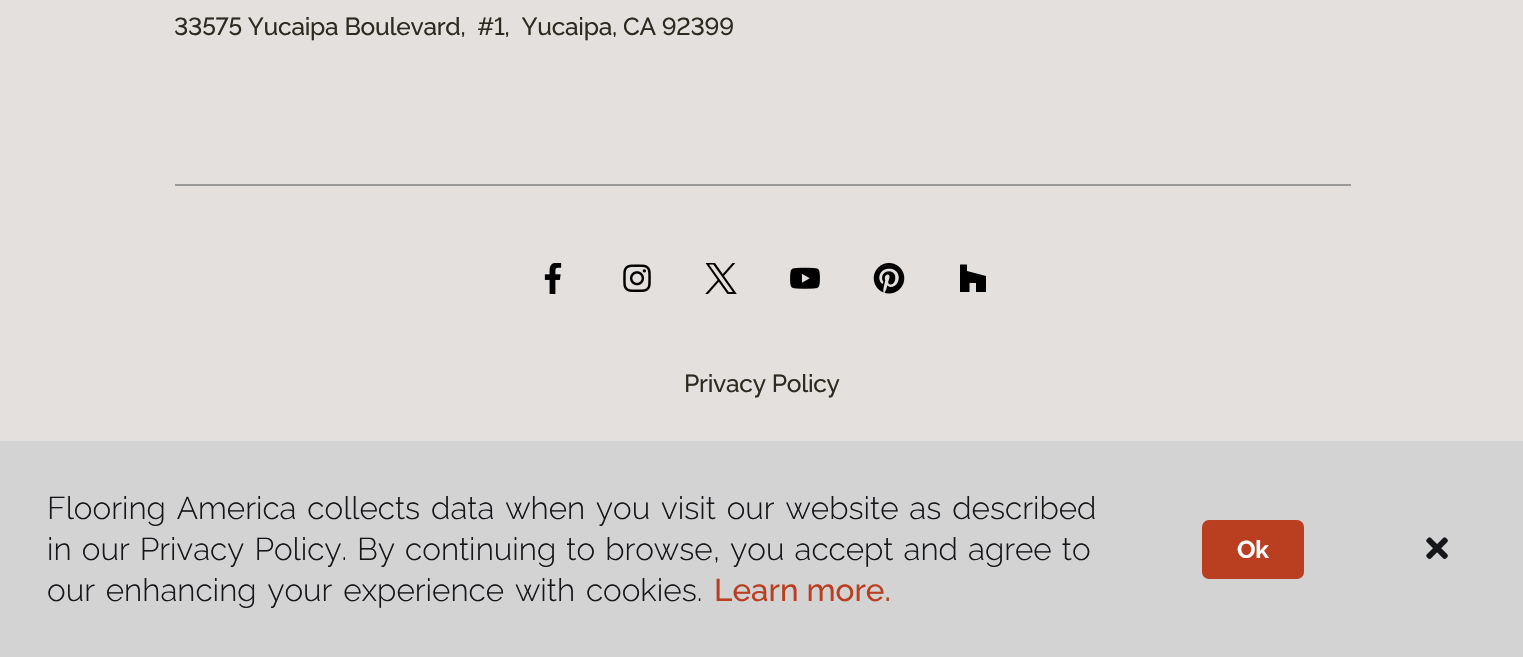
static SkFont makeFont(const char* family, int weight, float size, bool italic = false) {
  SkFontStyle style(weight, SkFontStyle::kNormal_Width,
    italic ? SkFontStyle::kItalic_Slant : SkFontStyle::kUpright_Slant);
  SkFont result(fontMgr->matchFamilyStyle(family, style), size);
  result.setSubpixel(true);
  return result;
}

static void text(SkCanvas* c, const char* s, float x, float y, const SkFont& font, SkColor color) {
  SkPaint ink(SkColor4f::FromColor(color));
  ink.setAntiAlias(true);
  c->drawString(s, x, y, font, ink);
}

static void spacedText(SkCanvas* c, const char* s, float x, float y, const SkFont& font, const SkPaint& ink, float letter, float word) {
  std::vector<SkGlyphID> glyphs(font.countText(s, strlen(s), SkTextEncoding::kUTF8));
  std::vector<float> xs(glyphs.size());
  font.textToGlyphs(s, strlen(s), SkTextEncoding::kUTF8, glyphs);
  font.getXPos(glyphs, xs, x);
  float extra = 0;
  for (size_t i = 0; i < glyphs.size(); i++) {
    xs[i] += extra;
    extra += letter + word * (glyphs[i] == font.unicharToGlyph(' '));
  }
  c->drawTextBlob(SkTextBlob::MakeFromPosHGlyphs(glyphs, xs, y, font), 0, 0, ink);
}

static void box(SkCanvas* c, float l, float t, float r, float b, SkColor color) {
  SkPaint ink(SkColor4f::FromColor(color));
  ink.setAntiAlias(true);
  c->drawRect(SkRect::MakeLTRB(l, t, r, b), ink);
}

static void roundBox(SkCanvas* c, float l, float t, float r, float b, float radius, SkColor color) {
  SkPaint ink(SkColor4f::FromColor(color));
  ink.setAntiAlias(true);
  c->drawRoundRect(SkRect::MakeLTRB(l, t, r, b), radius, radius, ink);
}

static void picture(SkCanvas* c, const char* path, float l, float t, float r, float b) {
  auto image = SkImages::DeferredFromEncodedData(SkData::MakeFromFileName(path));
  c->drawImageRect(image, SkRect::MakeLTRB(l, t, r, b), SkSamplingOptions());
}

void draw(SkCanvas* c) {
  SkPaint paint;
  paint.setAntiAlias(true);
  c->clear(0xffe3e0dd);
  box(c, 175, 184, 1351, 186, 0xff999999);
  SkFont face1 = makeFont("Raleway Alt", 500, 24.5f);
  paint.setColor(0xff2d2a20);
  spacedText(c, "33575 Yucaipa Boulevard,  #1,  Yucaipa, CA 92399", 174, 35, face1, paint, -0.25f, 0);
  picture(c, "img_01.png", 544, 263, 562, 294);
  picture(c, "img_02.png", 623, 264, 651, 292);
  picture(c, "img_03.png", 705, 263, 737, 294);
  picture(c, "img_04.png", 790, 267, 820, 289);
  picture(c, "img_05.png", 873, 263, 905, 294);
  paint.setColor(0xff000000);
  c->drawPath(SkPathBuilder().moveTo(976, 283).lineTo(969.5f, 283).lineTo(969.5f, 292).lineTo(960, 292).lineTo(960, 264.5f).lineTo(967, 264.5f).lineTo(967, 271).lineTo(986, 276).lineTo(986, 292).lineTo(976, 292).close().detach(), paint);
  SkFont face2 = makeFont("Raleway", 500, 24.5f);
  paint.setColor(0xff2d2a20);
  spacedText(c, "Privacy Policy", 684, 392, face2, paint, -0.25f, 0);
  box(c, 0, 441, 1523, 657, 0xffd3d3d4);
  SkFont face3 = makeFont("Raleway", 300, 31.5f);
  paint.setColor(0xff141619);
  spacedText(c, "Flooring America collects data when you visit our website as described", 47, 519, face3, paint, 0, 2.75f);
  spacedText(c, "in our Privacy Policy. By continuing to browse, you accept and agree to", 47, 560, face3, paint, 0, 2);
  spacedText(c, "our enhancing your experience with cookies.", 47, 601, face3, paint, 0, 2.75f);
  SkFont face4 = makeFont("Raleway", 500, 31.5f);
  text(c, "Learn more.", 714, 601, face4, 0xffb93f20);
  roundBox(c, 1202, 520, 1304, 579, 7, 0xffb93f20);
  SkFont face5 = makeFont("Raleway", 700, 24.5f);
  paint.setColor(0xffffffff);
  spacedText(c, "Ok", 1237, 558, face5, paint, -0.25f, 0);
  picture(c, "img_06.png", 1426, 537, 1448, 559);
}
